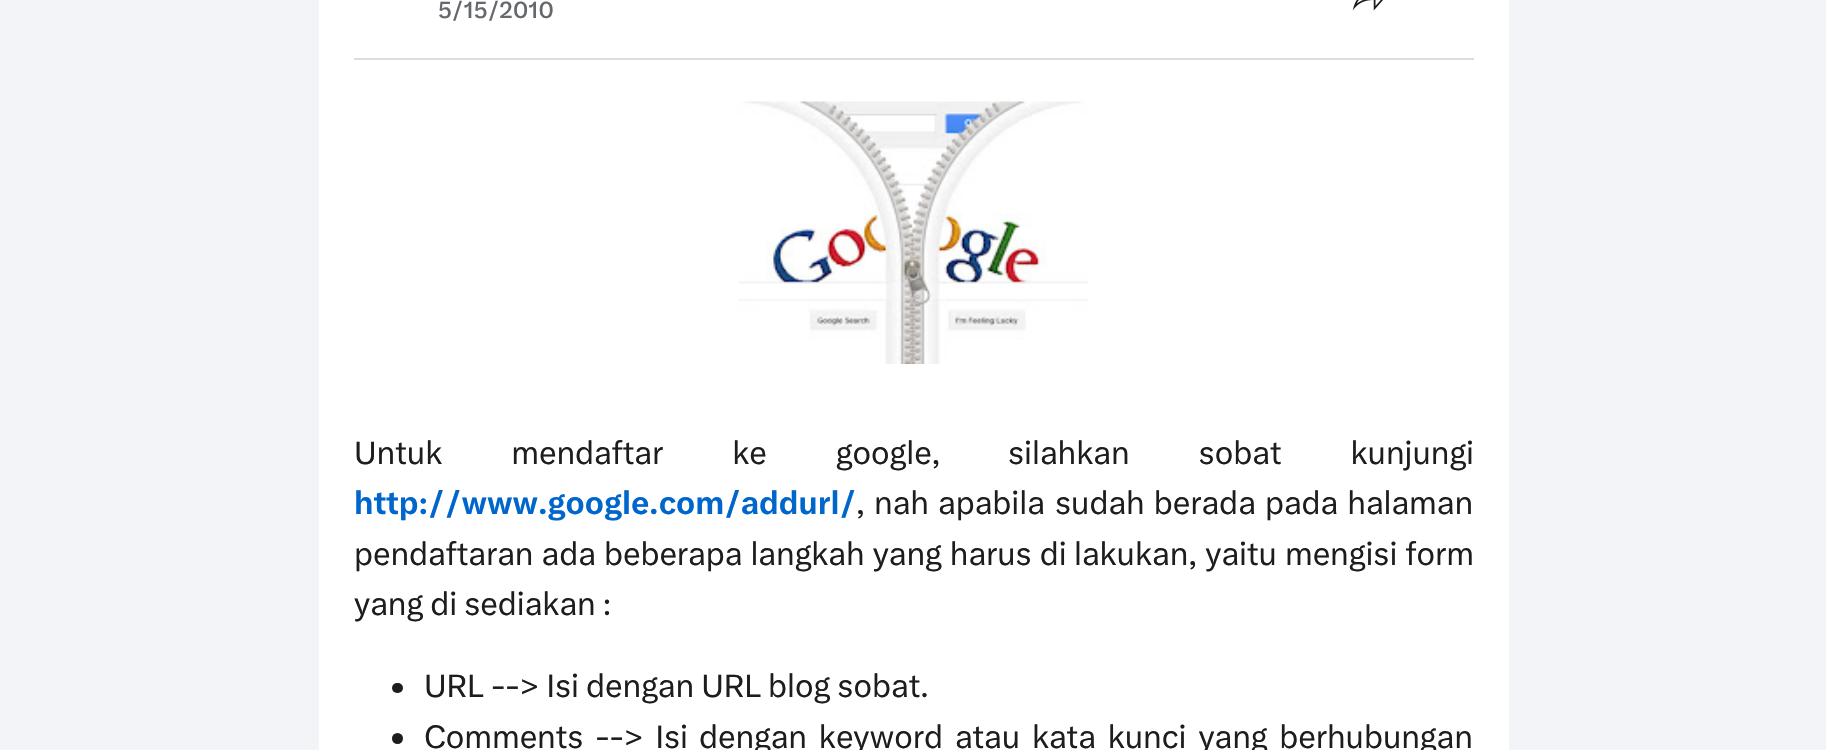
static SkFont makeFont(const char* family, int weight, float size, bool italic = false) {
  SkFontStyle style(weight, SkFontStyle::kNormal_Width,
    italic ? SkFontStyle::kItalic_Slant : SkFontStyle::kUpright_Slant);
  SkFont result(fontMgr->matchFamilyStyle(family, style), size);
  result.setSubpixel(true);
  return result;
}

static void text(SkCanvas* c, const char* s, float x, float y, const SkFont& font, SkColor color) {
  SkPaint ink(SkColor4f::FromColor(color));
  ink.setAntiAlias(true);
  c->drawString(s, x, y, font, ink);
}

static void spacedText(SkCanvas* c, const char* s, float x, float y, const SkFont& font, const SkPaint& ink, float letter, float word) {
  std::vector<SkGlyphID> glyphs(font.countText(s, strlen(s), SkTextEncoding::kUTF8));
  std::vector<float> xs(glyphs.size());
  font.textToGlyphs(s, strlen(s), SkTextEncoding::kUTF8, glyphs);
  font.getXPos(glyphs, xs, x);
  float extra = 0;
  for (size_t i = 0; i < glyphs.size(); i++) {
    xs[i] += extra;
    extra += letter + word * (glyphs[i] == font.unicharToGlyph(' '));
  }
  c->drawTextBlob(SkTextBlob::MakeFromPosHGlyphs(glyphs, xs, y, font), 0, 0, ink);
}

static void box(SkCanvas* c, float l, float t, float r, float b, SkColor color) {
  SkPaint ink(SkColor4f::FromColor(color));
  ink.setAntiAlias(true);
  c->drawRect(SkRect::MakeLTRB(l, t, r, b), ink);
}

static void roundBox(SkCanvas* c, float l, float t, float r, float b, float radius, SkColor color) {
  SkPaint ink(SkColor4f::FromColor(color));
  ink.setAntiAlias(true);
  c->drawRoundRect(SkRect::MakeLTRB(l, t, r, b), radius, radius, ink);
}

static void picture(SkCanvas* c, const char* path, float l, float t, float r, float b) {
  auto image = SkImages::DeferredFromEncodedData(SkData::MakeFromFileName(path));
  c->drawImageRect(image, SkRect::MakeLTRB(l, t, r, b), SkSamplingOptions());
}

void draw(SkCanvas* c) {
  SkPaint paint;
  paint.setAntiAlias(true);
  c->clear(0xfff2f4f7);
  box(c, 319, 0, 1509, 750, 0xffffffff);
  box(c, 354, 58, 1474, 60, 0xffdddddd);
  SkFont face1 = makeFont("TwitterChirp", 500, 22.75f);
  text(c, "5/15/2010", 438, 18, face1, 0xff65686c);
  picture(c, "img_01.png", 1352, 0, 1383, 11);
  picture(c, "img_02.png", 738, 101, 1089, 364);
  SkFont face2 = makeFont("TwitterChirp", 400, 31.5f);
  paint.setColor(0xff1d1d1d);
  spacedText(c, "Untuk mendaftar ke google,", 354, 464, face2, paint, 0, 62);
  spacedText(c, "silahkan sobat kunjungi", 1008, 464, face2, paint, 0, 62);
  SkFont face3 = makeFont("TwitterChirp", 700, 31.5f);
  text(c, "http://www.google.com/addurl/", 354, 514, face3, 0xff0066cc);
  spacedText(c, ", nah apabila", 856, 514, face2, paint, 0, 2);
  spacedText(c, "sudah berada pada halaman", 1055, 514, face2, paint, 0, 2);
  spacedText(c, "pendaftaran ada beberapa langkah yang harus di", 354, 565, face2, paint, 0, 1);
  spacedText(c, "lakukan, yaitu mengisi form", 1074, 565, face2, paint, 0, 1);
  text(c, "yang di sediakan :", 354, 615, face2, 0xff1d1d1d);
  roundBox(c, 392, 683, 403, 693, 5, 0xff1d1d1d);
  text(c, "URL --> Isi dengan URL blog sobat.", 424, 697, face2, 0xff1d1d1d);
  c->drawCircle(397.5f, 738.5f, 5.5f, paint);
  spacedText(c, "Comments --> Isi", 424, 748, face2, paint, 0, 4.75f);
  spacedText(c, "dengan keyword atau kata kunci yang berhubungan", 699, 748, face2, paint, 0, 4.75f);
}
